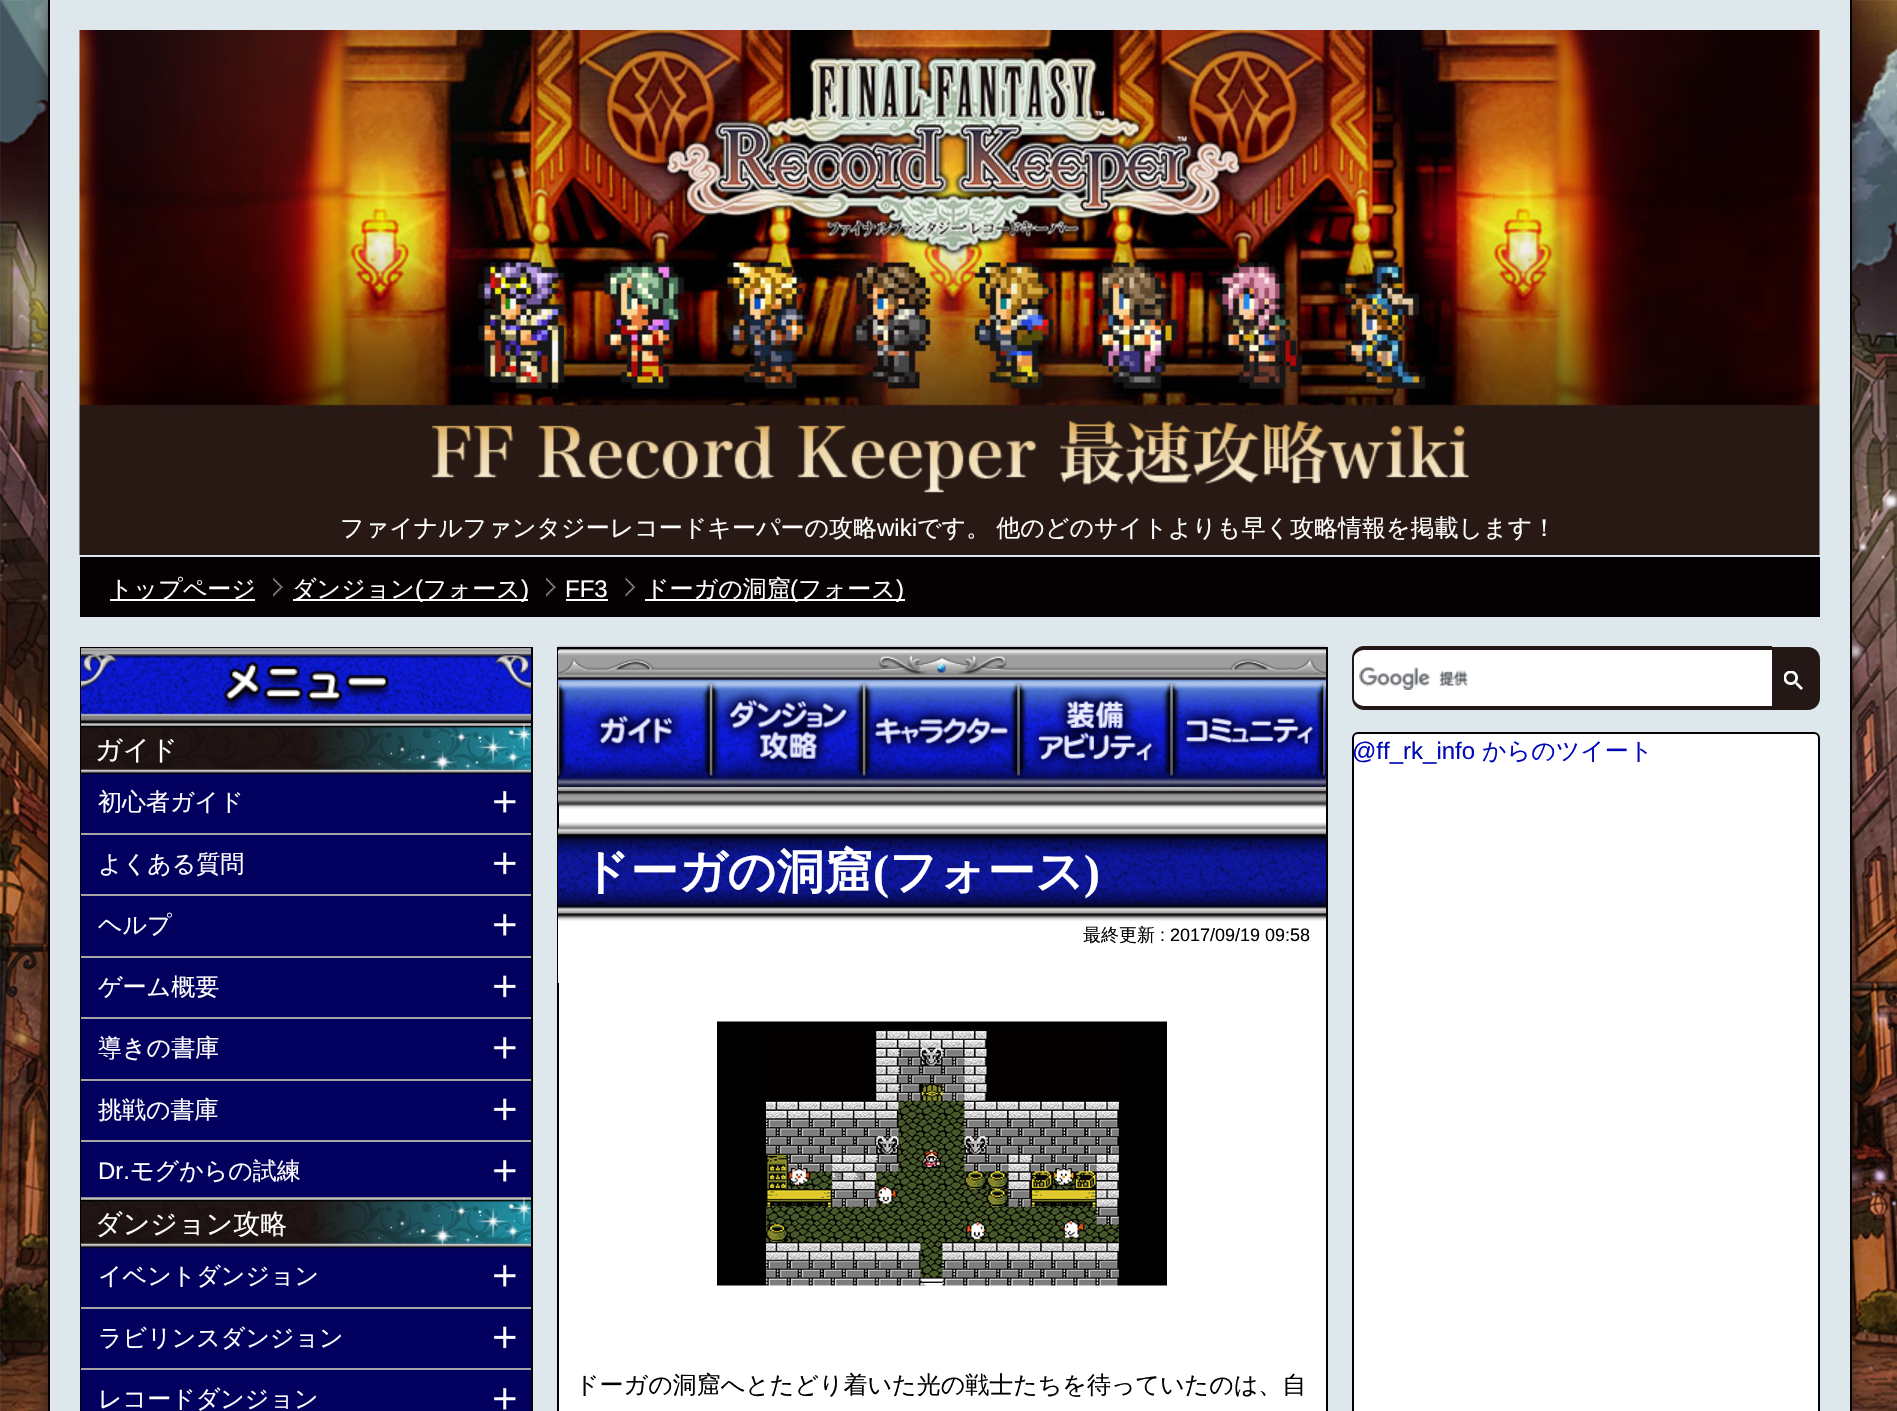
static SkFont makeFont(const char* family, int weight, float size, bool italic = false) {
  SkFontStyle style(weight, SkFontStyle::kNormal_Width,
    italic ? SkFontStyle::kItalic_Slant : SkFontStyle::kUpright_Slant);
  SkFont result(fontMgr->matchFamilyStyle(family, style), size);
  result.setSubpixel(true);
  return result;
}

static void text(SkCanvas* c, const char* s, float x, float y, const SkFont& font, SkColor color) {
  SkPaint ink(SkColor4f::FromColor(color));
  ink.setAntiAlias(true);
  c->drawString(s, x, y, font, ink);
}

static void spacedText(SkCanvas* c, const char* s, float x, float y, const SkFont& font, const SkPaint& ink, float letter, float word) {
  std::vector<SkGlyphID> glyphs(font.countText(s, strlen(s), SkTextEncoding::kUTF8));
  std::vector<float> xs(glyphs.size());
  font.textToGlyphs(s, strlen(s), SkTextEncoding::kUTF8, glyphs);
  font.getXPos(glyphs, xs, x);
  float extra = 0;
  for (size_t i = 0; i < glyphs.size(); i++) {
    xs[i] += extra;
    extra += letter + word * (glyphs[i] == font.unicharToGlyph(' '));
  }
  c->drawTextBlob(SkTextBlob::MakeFromPosHGlyphs(glyphs, xs, y, font), 0, 0, ink);
}

static void box(SkCanvas* c, float l, float t, float r, float b, SkColor color) {
  SkPaint ink(SkColor4f::FromColor(color));
  ink.setAntiAlias(true);
  c->drawRect(SkRect::MakeLTRB(l, t, r, b), ink);
}

static void picture(SkCanvas* c, const char* path, float l, float t, float r, float b) {
  auto image = SkImages::DeferredFromEncodedData(SkData::MakeFromFileName(path));
  c->drawImageRect(image, SkRect::MakeLTRB(l, t, r, b), SkSamplingOptions());
}

void draw(SkCanvas* c) {
  SkPaint paint;
  paint.setAntiAlias(true);
  c->clear(0xffffffff);
  picture(c, "img_01.png", 0, 0, 1897, 1411);
  paint.setColor(0xbf291914);
  paint.setMaskFilter(SkMaskFilter::MakeBlur(kNormal_SkBlurStyle, 7.5f));
  c->drawRect(SkRect::MakeLTRB(48, 0, 1851, 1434), paint);
  paint.setMaskFilter(nullptr);
  box(c, 50, 0, 1850, 1411, 0xffdee7ec);
  box(c, 1850, 0, 1852, 1411, 0xff050001);
  box(c, 48, 0, 50, 1411, 0xff050001);
  picture(c, "img_02.png", 79, 30, 1820, 555);
  picture(c, "img_03.png", 431, 420, 1469, 493);
  SkFont face1 = makeFont("WenQuanYi Zen Hei", 500, 24);
  text(c, "ファイナルファンタジーレコードキーパーの攻略", 340, 536, face1, 0xffffffff);
  SkFont face2 = makeFont("Liberation Sans", 400, 24);
  text(c, "wiki", 877, 536, face2, 0xffffffff);
  paint.setColor(0xffffffff);
  spacedText(c, "です。 他のどのサイトよりも早く攻略情報を掲載します！", 917, 536, face1, paint, 0, -1);
  box(c, 80, 557, 1820, 617, 0xff050001);
  box(c, 110, 599, 255, 601, 0xffffffff);
  text(c, "トップページ", 109, 597, face1, 0xffffffff);
  picture(c, "img_04.png", 273, 577, 283, 597);
  box(c, 293, 599, 528, 601, 0xffffffff);
  text(c, "ダンジョン", 292, 597, face1, 0xffffffff);
  text(c, "(", 415, 597, face2, 0xffffffff);
  text(c, "フォース", 423, 597, face1, 0xffffffff);
  text(c, ")", 521, 597, face2, 0xffffffff);
  picture(c, "img_04.png", 546, 577, 556, 597);
  text(c, "FF3", 565, 597, face2, 0xffffffff);
  box(c, 566, 599, 608, 601, 0xffffffff);
  picture(c, "img_05.png", 625, 577, 636, 597);
  box(c, 645, 599, 905, 601, 0xffffffff);
  text(c, "ドーガの洞窟", 645, 597, face1, 0xffffffff);
  text(c, "(", 790, 597, face2, 0xffffffff);
  text(c, "フォース", 798, 597, face1, 0xffffffff);
  text(c, ")", 896, 597, face2, 0xffffffff);
  paint.setStyle(SkPaint::kStroke_Style);
  paint.setStrokeWidth(2);
  paint.setColor(0xff050001);
  c->drawRect(SkRect::MakeLTRB(81, 648, 532, 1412), paint);
  picture(c, "img_06.png", 81, 648, 531, 723);
  picture(c, "img_07.png", 81, 654, 118, 689);
  picture(c, "img_08.png", 222, 661, 390, 711);
  picture(c, "img_09.png", 494, 654, 531, 690);
  box(c, 81, 773, 531, 1411, 0xff02005f);
  paint.setStyle(SkPaint::kFill_Style);
  {
    const SkColor colors[] = {0xff201513, 0xff201513, 0xff1f97ad};
    const float stops[] = {0, 0.5f, 1};
    const SkPoint ends[] = {{81, 749}, {531, 749}};
    paint.setShader(SkGradientShader::MakeLinear(ends, colors, stops, 3, SkTileMode::kClamp));
    paint.setAlpha(255);
  }
  c->drawRect(SkRect::MakeLTRB(81, 726, 531, 770), paint);
  picture(c, "img_10.png", 81, 723, 531, 775);
  SkFont face3 = makeFont("WenQuanYi Zen Hei", 500, 27);
  text(c, "ガイド", 95, 759, face3, 0xffffffff);
  picture(c, "img_11.png", 378, 723, 531, 771);
  box(c, 81, 833, 531, 835, 0xffa5a5a5);
  text(c, "初心者ガイド", 98, 810, face1, 0xffffffff);
  picture(c, "img_12.png", 493, 790, 516, 813);
  box(c, 81, 894, 531, 896, 0xffa5a5a5);
  text(c, "よくある質問", 98, 872, face1, 0xffffffff);
  picture(c, "img_13.png", 493, 852, 516, 875);
  box(c, 81, 956, 531, 958, 0xffa5a5a5);
  text(c, "ヘルプ", 98, 933, face1, 0xffffffff);
  picture(c, "img_12.png", 493, 913, 516, 936);
  box(c, 81, 1017, 531, 1019, 0xffa5a5a5);
  text(c, "ゲーム概要", 98, 995, face1, 0xffffffff);
  picture(c, "img_13.png", 493, 975, 516, 998);
  box(c, 81, 1079, 531, 1081, 0xffa5a5a5);
  text(c, "導きの書庫", 98, 1056, face1, 0xffffffff);
  picture(c, "img_12.png", 493, 1036, 516, 1059);
  box(c, 81, 1140, 531, 1142, 0xffa5a5a5);
  text(c, "挑戦の書庫", 98, 1118, face1, 0xffffffff);
  picture(c, "img_13.png", 493, 1098, 516, 1121);
  text(c, "Dr.", 98, 1179, face2, 0xffffffff);
  text(c, "モグからの試練", 130, 1179, face1, 0xffffffff);
  picture(c, "img_12.png", 493, 1159, 516, 1182);
  {
    const SkColor colors[] = {0xff201513, 0xff201513, 0xff1f97ad};
    const float stops[] = {0, 0.5f, 1};
    const SkPoint ends[] = {{81, 1223}, {531, 1223}};
    paint.setShader(SkGradientShader::MakeLinear(ends, colors, stops, 3, SkTileMode::kClamp));
    paint.setAlpha(255);
  }
  c->drawRect(SkRect::MakeLTRB(81, 1200, 531, 1244), paint);
  picture(c, "img_14.png", 81, 1197, 531, 1249);
  text(c, "ダンジョン攻略", 95, 1233, face3, 0xffffffff);
  picture(c, "img_15.png", 378, 1197, 531, 1245);
  box(c, 81, 1307, 531, 1309, 0xffa5a5a5);
  text(c, "イベントダンジョン", 98, 1284, face1, 0xffffffff);
  picture(c, "img_12.png", 493, 1264, 516, 1287);
  box(c, 81, 1368, 531, 1370, 0xffa5a5a5);
  text(c, "ラビリンスダンジョン", 98, 1346, face1, 0xffffffff);
  picture(c, "img_13.png", 493, 1326, 516, 1349);
  text(c, "レコードダンジョン", 98, 1407, face1, 0xffffffff);
  picture(c, "img_12.png", 493, 1387, 516, 1410);
  paint.setShader(nullptr);
  paint.setColor(0xffffffff);
  c->drawRect(SkRect::MakeLTRB(558, 648, 1327, 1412), paint);
  paint.setStyle(SkPaint::kStroke_Style);
  paint.setColor(0xff050001);
  c->drawRect(SkRect::MakeLTRB(558, 648, 1327, 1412), paint);
  picture(c, "img_16.png", 558, 645, 1326, 809);
  picture(c, "img_17.png", 558, 655, 1326, 675);
  picture(c, "img_18.png", 558, 682, 711, 779);
  picture(c, "img_19.png", 589, 705, 683, 755);
  picture(c, "img_20.png", 711, 682, 864, 779);
  picture(c, "img_21.png", 719, 688, 857, 771);
  picture(c, "img_22.png", 864, 682, 1019, 779);
  picture(c, "img_23.png", 864, 706, 1014, 755);
  picture(c, "img_24.png", 1018, 682, 1172, 778);
  picture(c, "img_25.png", 1028, 689, 1162, 771);
  picture(c, "img_26.png", 1171, 682, 1325, 779);
  picture(c, "img_27.png", 1177, 706, 1320, 755);
  box(c, 558, 914, 559, 983, 0xffffffff);
  box(c, 558, 835, 1326, 908, 0xff1322f5);
  picture(c, "img_28.png", 558, 835, 1326, 908);
  paint.setStyle(SkPaint::kFill_Style);
  {
    const SkColor colors[] = {0xe6000000, 0xb3000000, 0x80000000, 0x42000000, 0x42000000, 0x80000000, 0xb3000000, 0xe6000000};
    const float stops[] = {0, 0.05f, 0.15f, 0.3f, 0.7f, 0.85f, 0.95f, 1};
    const SkPoint ends[] = {{942, 834}, {942, 909}};
    paint.setShader(SkGradientShader::MakeLinear(ends, colors, stops, 8, SkTileMode::kClamp));
    paint.setAlpha(255);
  }
  c->drawRect(SkRect::MakeLTRB(558, 835, 1326, 908), paint);
  picture(c, "img_29.png", 558, 822, 1326, 921);
  SkFont face4 = makeFont("WenQuanYi Zen Hei", 700, 48);
  text(c, "ドーガの洞窟", 581, 888, face4, 0xffffffff);
  SkFont face5 = makeFont("Liberation Serif", 700, 48);
  text(c, "(", 873, 888, face5, 0xffffffff);
  text(c, "フォース", 889, 888, face4, 0xffffffff);
  text(c, ")", 1084, 888, face5, 0xffffffff);
  SkFont face6 = makeFont("WenQuanYi Zen Hei", 500, 18);
  text(c, "最終更新", 1083, 941, face6, 0xff000000);
  SkFont face7 = makeFont("Liberation Sans", 400, 18);
  text(c, ": 2017/09/19 09:58", 1160, 941, face7, 0xff000000);
  picture(c, "img_30.png", 717, 1021, 1167, 1286);
  text(c, "ドーガの洞窟へとたどり着いた光の戦士たちを待っていたのは、自", 575, 1393, face1, 0xff000000);
  paint.setShader(nullptr);
  paint.setColor(0xffffffff);
  c->drawPath(SkPathBuilder().moveTo(1364, 647).lineTo(1772, 647).lineTo(1772, 710).lineTo(1364, 710).cubicTo(1357.5f, 710, 1352, 704.5f, 1352, 698).lineTo(1352, 659).cubicTo(1352, 652.5f, 1357.5f, 647, 1364, 647).close().detach(), paint);
  paint.setColor(0xff231815);
  c->drawPath(SkPathBuilder(SkPathFillType::kEvenOdd).moveTo(1364, 646).lineTo(1772, 646).lineTo(1772, 710).lineTo(1364, 710).cubicTo(1357, 710, 1352, 704, 1352, 698).lineTo(1352, 658).cubicTo(1352, 652, 1357, 646, 1364, 646).close().moveTo(1364, 650).lineTo(1772, 650).lineTo(1772, 706).lineTo(1364, 706).cubicTo(1359, 706, 1354, 702, 1354, 698).lineTo(1354, 658).cubicTo(1354, 654, 1359, 650, 1364, 650).close().detach(), paint);
  picture(c, "img_31.png", 1359, 667, 1468, 690);
  c->drawPath(SkPathBuilder().moveTo(1772, 647).lineTo(1808, 647).cubicTo(1814.5f, 647, 1820, 652.5f, 1820, 659).lineTo(1820, 698).cubicTo(1820, 704.5f, 1814.5f, 710, 1808, 710).lineTo(1772, 710).close().detach(), paint);
  picture(c, "img_32.png", 1784, 671, 1803, 690);
  paint.setColor(0xffffffff);
  c->drawRoundRect(SkRect::MakeLTRB(1353, 733, 1819, 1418), 5, 5, paint);
  paint.setStyle(SkPaint::kStroke_Style);
  paint.setColor(0xff050001);
  c->drawRoundRect(SkRect::MakeLTRB(1353, 733, 1819, 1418), 5, 5, paint);
  text(c, "@ff_rk_info", 1352, 759, face2, 0xff0008b8);
  text(c, "からのツイート", 1482, 759, face1, 0xff0008b8);
}
